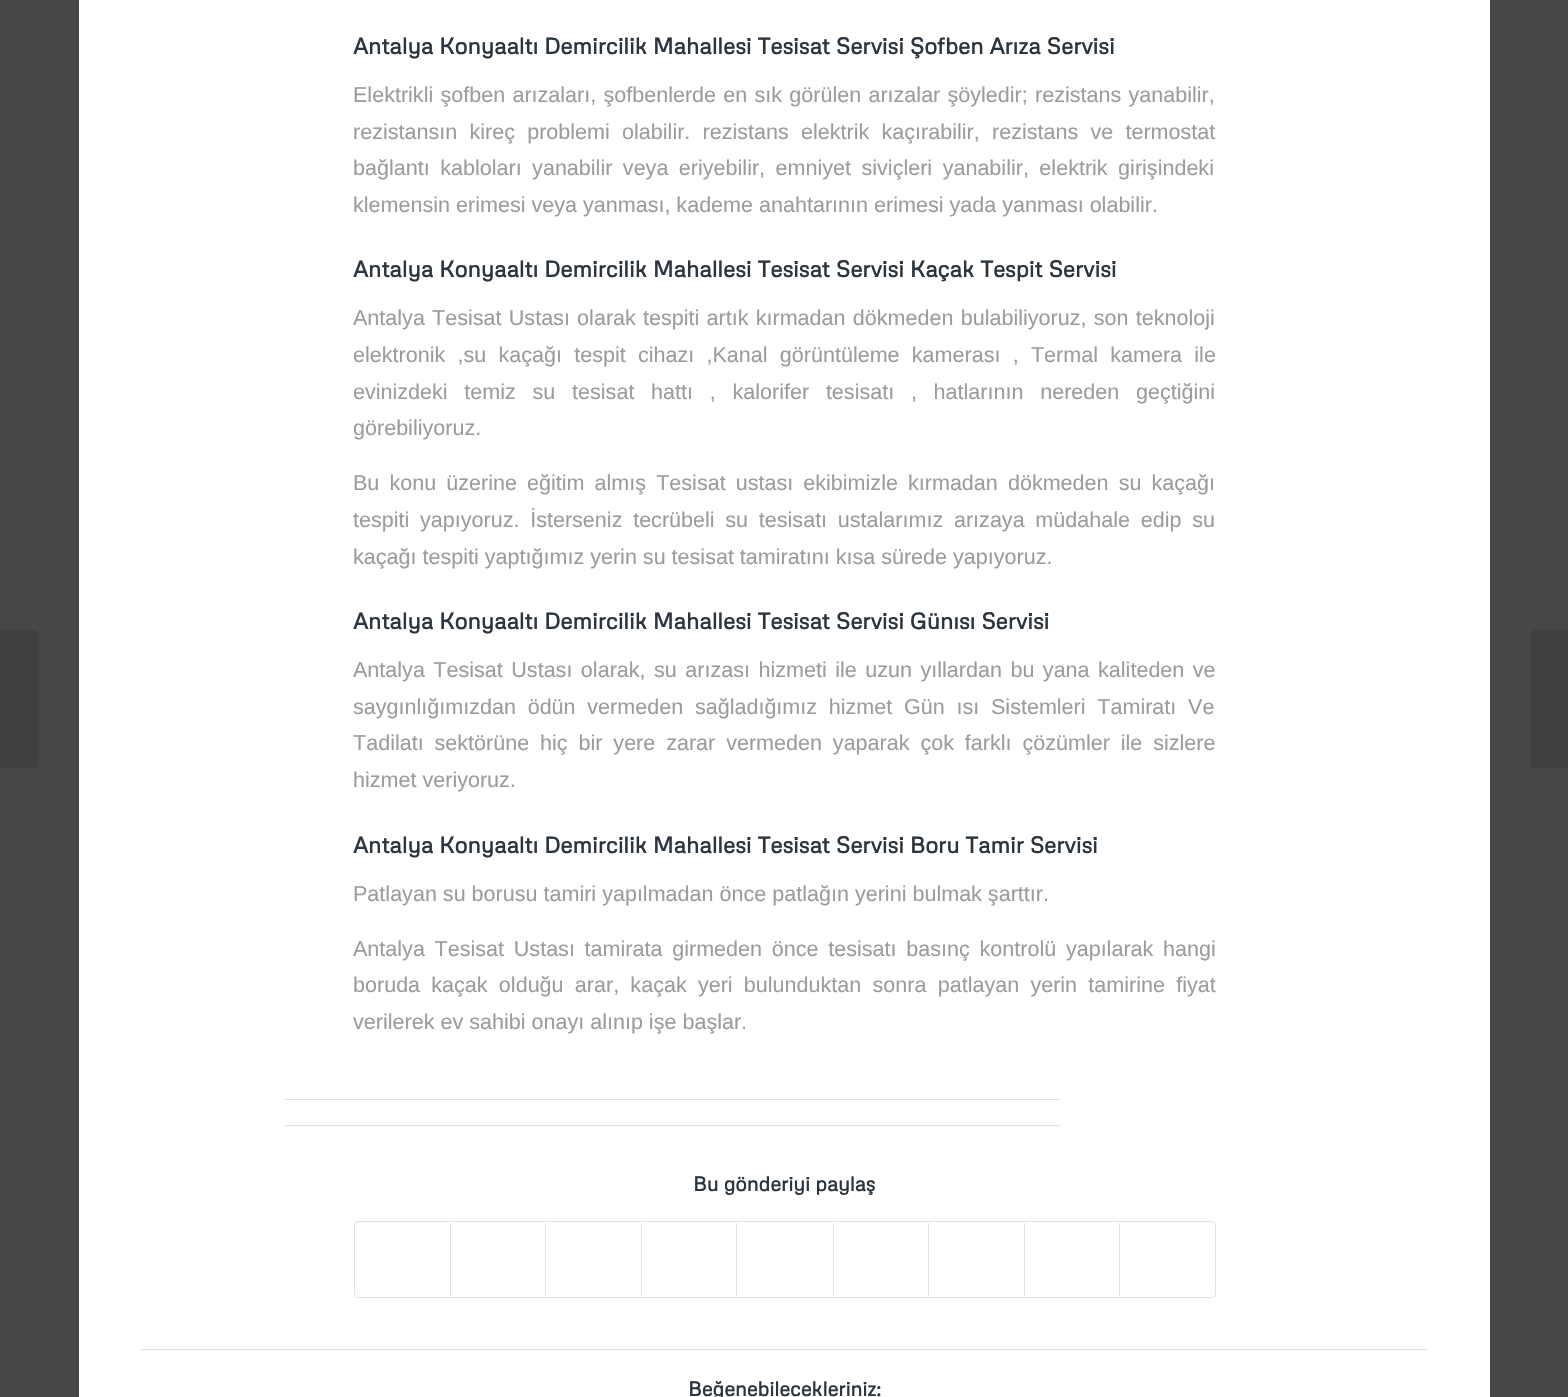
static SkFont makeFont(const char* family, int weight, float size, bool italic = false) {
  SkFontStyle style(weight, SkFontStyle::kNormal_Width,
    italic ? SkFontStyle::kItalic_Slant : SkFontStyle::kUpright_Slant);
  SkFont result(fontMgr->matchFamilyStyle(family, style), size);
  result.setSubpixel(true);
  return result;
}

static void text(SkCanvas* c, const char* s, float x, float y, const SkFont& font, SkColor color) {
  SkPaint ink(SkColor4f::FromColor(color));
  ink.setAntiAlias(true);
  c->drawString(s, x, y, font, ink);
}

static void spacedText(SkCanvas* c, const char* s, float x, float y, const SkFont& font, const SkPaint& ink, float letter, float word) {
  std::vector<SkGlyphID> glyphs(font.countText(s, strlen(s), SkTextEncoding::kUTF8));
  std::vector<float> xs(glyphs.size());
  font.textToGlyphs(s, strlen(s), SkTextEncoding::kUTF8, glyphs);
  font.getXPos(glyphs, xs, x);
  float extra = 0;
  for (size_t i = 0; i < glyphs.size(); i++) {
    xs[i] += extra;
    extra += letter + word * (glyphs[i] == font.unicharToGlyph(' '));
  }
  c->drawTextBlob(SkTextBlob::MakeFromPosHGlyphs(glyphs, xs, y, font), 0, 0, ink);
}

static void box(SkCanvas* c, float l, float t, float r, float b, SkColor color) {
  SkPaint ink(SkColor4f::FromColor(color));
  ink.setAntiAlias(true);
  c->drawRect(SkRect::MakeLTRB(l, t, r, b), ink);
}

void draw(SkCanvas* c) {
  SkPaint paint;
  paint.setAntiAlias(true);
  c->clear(0xff474747);
  paint.setColor(0xff404040);
  c->drawPath(SkPathBuilder().moveTo(0, 630).lineTo(34, 630).cubicTo(37, 630, 39, 632, 39, 635).lineTo(39, 763).cubicTo(39, 766, 37, 768, 34, 768).lineTo(0, 768).close().detach(), paint);
  box(c, 79, 0, 1490, 1397, 0xffffffff);
  SkFont face1 = makeFont("Metrophobic", 700, 22.5f);
  text(c, "Antalya Konyaaltı Demircilik Mahallesi Tesisat Servisi Şofben Arıza Servisi", 353, 54, face1, 0xff2c353d);
  SkFont face2 = makeFont("Liberation Sans", 400, 21.55f);
  paint.setColor(0xff9c9c9c);
  spacedText(c, "Elektrikli şofben arızaları, şofbenlerde en sık görülen arızalar şöyledir; rezistans yanabilir,", 353, 102, face2, paint, 0, 1.25f);
  spacedText(c, "rezistansın kireç problemi olabilir. rezistans elektrik kaçırabilir, rezistans ve termostat", 353, 139, face2, paint, 0, 6.25f);
  spacedText(c, "bağlantı kabloları yanabilir veya eriyebilir, emniyet siviçleri yanabilir, elektrik girişindeki", 353, 175, face2, paint, 0, 4.5f);
  text(c, "klemensin erimesi veya yanması, kademe anahtarının erimesi yada yanması olabilir.", 353, 212, face2, 0xff9c9c9c);
  text(c, "Antalya Konyaaltı Demircilik Mahallesi Tesisat Servisi Kaçak Tespit Servisi", 353, 277, face1, 0xff2c353d);
  spacedText(c, "Antalya Tesisat Ustası olarak tespiti artık kırmadan dökmeden bulabiliyoruz, son teknoloji", 353, 325, face2, paint, 0, 1.25f);
  spacedText(c, "elektronik ,su kaçağı tespit cihazı ,Kanal görüntüleme kamerası , Termal kamera ile", 353, 362, face2, paint, 0, 6.25f);
  spacedText(c, "evinizdeki temiz su tesisat hattı , kalorifer tesisatı , hatlarının nereden geçtiğini", 353, 399, face2, paint, 0, 10.75f);
  text(c, "görebiliyoruz.", 353, 435, face2, 0xff9c9c9c);
  spacedText(c, "Bu konu üzerine eğitim almış Tesisat ustası ekibimizle kırmadan dökmeden su kaçağı", 353, 490, face2, paint, 0, 4.1f);
  spacedText(c, "tespiti yapıyoruz. İsterseniz tecrübeli su tesisatı ustalarımız arızaya müdahale edip su", 353, 527, face2, paint, 0, 4.75f);
  text(c, "kaçağı tespiti yaptığımız yerin su tesisat tamiratını kısa sürede yapıyoruz.", 353, 564, face2, 0xff9c9c9c);
  text(c, "Antalya Konyaaltı Demircilik Mahallesi Tesisat Servisi Günısı Servisi", 353, 629, face1, 0xff2c353d);
  spacedText(c, "Antalya Tesisat Ustası olarak, su arızası hizmeti ile uzun yıllardan bu yana kaliteden ve", 353, 677, face2, paint, 0, 2.5f);
  spacedText(c, "saygınlığımızdan ödün vermeden sağladığımız hizmet Gün ısı Sistemleri Tamiratı Ve", 353, 714, face2, paint, 0, 5.75f);
  spacedText(c, "Tadilatı sektörüne hiç bir yere zarar vermeden yaparak çok farklı çözümler ile sizlere", 353, 750, face2, paint, 0, 4.9f);
  text(c, "hizmet veriyoruz.", 353, 787, face2, 0xff9c9c9c);
  text(c, "Antalya Konyaaltı Demircilik Mahallesi Tesisat Servisi Boru Tamir Servisi", 353, 853, face1, 0xff2c353d);
  text(c, "Patlayan su borusu tamiri yapılmadan önce patlağın yerini bulmak şarttır.", 353, 901, face2, 0xff9c9c9c);
  spacedText(c, "Antalya Tesisat Ustası tamirata girmeden önce tesisatı basınç kontrolü yapılarak hangi", 353, 956, face2, paint, 0, 3.75f);
  spacedText(c, "boruda kaçak olduğu arar, kaçak yeri bulunduktan sonra patlayan yerin tamirine fiyat", 353, 992, face2, paint, 0, 5.25f);
  text(c, "verilerek ev sahibi onayı alınıp işe başlar.", 353, 1029, face2, 0xff9c9c9c);
  box(c, 285, 1099, 1061, 1100, 0xffe1e1e1);
  box(c, 285, 1125, 1061, 1126, 0xffe1e1e1);
  SkFont face3 = makeFont("Metrophobic", 700, 20);
  text(c, "Bu gönderiyi paylaş", 693, 1191, face3, 0xff2c353d);
  paint.setStyle(SkPaint::kStroke_Style);
  paint.setStrokeWidth(1);
  paint.setColor(0xffe1e1e1);
  c->drawRoundRect(SkRect::MakeLTRB(354.5f, 1221.5f, 1215.5f, 1297.5f), 3.5f, 3.5f, paint);
  box(c, 450, 1223, 451, 1296, 0xffe1e1e1);
  box(c, 545, 1223, 546, 1296, 0xffe1e1e1);
  box(c, 641, 1223, 642, 1296, 0xffe1e1e1);
  box(c, 736, 1223, 737, 1296, 0xffe1e1e1);
  box(c, 833, 1223, 834, 1296, 0xffe1e1e1);
  box(c, 928, 1223, 929, 1296, 0xffe1e1e1);
  box(c, 1024, 1223, 1025, 1296, 0xffe1e1e1);
  box(c, 1119, 1223, 1120, 1296, 0xffe1e1e1);
  box(c, 141, 1349, 1428, 1350, 0xffe1e1e1);
  text(c, "Beğenebilecekleriniz:", 688, 1396, face3, 0xff2c353d);
  paint.setStyle(SkPaint::kFill_Style);
  paint.setColor(0xff404040);
  c->drawPath(SkPathBuilder().moveTo(1535, 630).lineTo(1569, 630).lineTo(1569, 768).lineTo(1535, 768).cubicTo(1532, 768, 1530, 766, 1530, 763).lineTo(1530, 635).cubicTo(1530, 632, 1532, 630, 1535, 630).close().detach(), paint);
}
